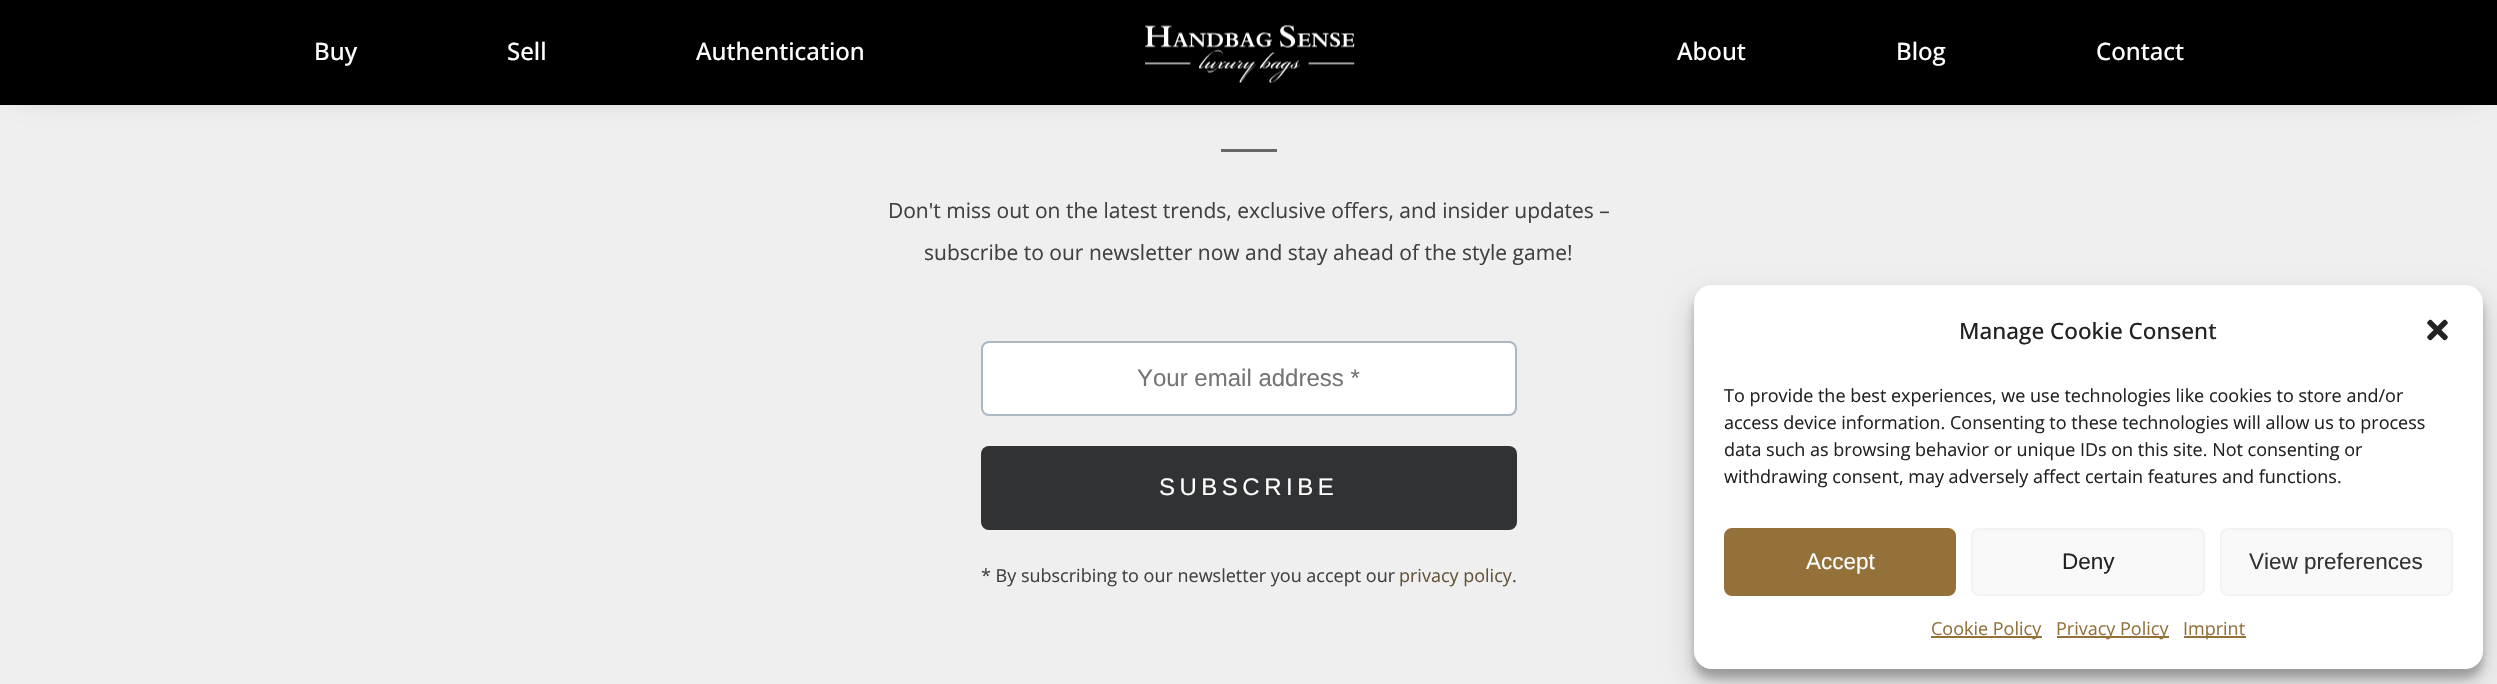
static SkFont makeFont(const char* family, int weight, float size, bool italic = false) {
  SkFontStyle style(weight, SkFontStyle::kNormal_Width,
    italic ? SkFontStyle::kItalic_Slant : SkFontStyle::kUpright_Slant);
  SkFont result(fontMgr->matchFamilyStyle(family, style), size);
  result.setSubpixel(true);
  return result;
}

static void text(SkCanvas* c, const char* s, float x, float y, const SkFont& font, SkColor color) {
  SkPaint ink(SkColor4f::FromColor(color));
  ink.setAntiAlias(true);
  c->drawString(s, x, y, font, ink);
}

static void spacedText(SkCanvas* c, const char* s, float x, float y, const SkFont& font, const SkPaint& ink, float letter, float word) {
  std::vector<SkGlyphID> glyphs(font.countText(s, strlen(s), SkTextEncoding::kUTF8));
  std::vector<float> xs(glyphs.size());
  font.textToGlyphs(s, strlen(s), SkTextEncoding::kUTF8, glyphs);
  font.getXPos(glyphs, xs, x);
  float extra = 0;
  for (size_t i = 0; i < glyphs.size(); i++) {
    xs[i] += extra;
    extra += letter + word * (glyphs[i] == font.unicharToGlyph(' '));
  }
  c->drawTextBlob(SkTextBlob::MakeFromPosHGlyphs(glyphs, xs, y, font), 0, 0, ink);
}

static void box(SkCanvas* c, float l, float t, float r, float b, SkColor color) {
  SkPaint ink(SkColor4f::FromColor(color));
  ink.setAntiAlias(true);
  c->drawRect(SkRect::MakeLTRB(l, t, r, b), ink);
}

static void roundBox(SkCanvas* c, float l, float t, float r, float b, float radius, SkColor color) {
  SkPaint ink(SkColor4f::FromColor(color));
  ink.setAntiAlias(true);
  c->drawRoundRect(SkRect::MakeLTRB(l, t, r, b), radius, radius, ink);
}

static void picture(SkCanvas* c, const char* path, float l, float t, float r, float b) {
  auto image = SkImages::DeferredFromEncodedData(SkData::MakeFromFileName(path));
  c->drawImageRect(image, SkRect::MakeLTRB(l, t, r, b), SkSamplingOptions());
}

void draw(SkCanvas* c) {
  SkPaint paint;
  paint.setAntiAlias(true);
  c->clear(0xffefefef);
  paint.setColor(0x4d000000);
  paint.setMaskFilter(SkMaskFilter::MakeBlur(kNormal_SkBlurStyle, 15));
  c->drawRect(SkRect::MakeLTRB(23, 30, 2475, 90), paint);
  paint.setMaskFilter(nullptr);
  box(c, 0, 0, 2497, 105, 0xff000000);
  SkFont face1 = makeFont("Open Sans", 500, 24);
  text(c, "Buy", 314, 60, face1, 0xffffffff);
  text(c, "Sell", 507, 60, face1, 0xffffffff);
  text(c, "Authentication", 696, 60, face1, 0xffffffff);
  picture(c, "img_01.png", 1145, 25, 1355, 83);
  text(c, "About", 1677, 60, face1, 0xffffffff);
  text(c, "Blog", 1896, 60, face1, 0xffffffff);
  text(c, "Contact", 2096, 60, face1, 0xffffffff);
  box(c, 1221, 149, 1277, 152, 0xff676767);
  SkFont face2 = makeFont("Open Sans", 400, 21);
  text(c, "Don't miss out on the latest trends, exclusive offers, and insider updates –", 888, 218, face2, 0xff404040);
  text(c, "subscribe to our newsletter now and stay ahead of the style game!", 924, 260, face2, 0xff404040);
  paint.setColor(0xffffffff);
  c->drawRoundRect(SkRect::MakeLTRB(982, 342, 1516, 415), 7, 7, paint);
  paint.setStyle(SkPaint::kStroke_Style);
  paint.setStrokeWidth(2);
  paint.setColor(0xffabb8c3);
  c->drawRoundRect(SkRect::MakeLTRB(982, 342, 1516, 415), 7, 7, paint);
  SkFont face3 = makeFont("Liberation Sans", 400, 24);
  text(c, "Your email address *", 1137, 386, face3, 0xff757575);
  roundBox(c, 981, 446, 1517, 530, 8, 0xff313233);
  paint.setStyle(SkPaint::kFill_Style);
  paint.setColor(0xffffffff);
  spacedText(c, "SUBSCRIBE", 1159, 495, face3, paint, 4.5f, 0);
  SkFont face4 = makeFont("Open Sans", 400, 18);
  text(c, "* By subscribing to our newsletter you accept our", 981, 582, face4, 0xff404040);
  text(c, "privacy policy", 1399, 582, face4, 0xff635339);
  text(c, ".", 1512, 582, face4, 0xff404040);
  paint.setColor(0x3b000000);
  paint.setMaskFilter(SkMaskFilter::MakeBlur(kNormal_SkBlurStyle, 4.5f));
  c->drawRoundRect(SkRect::MakeLTRB(1694, 294, 2483, 678), 18, 18, paint);
  paint.setMaskFilter(nullptr);
  paint.setColor(0x30000000);
  paint.setMaskFilter(SkMaskFilter::MakeBlur(kNormal_SkBlurStyle, 15));
  c->drawRoundRect(SkRect::MakeLTRB(1694, 300, 2483, 684), 18, 18, paint);
  paint.setMaskFilter(nullptr);
  roundBox(c, 1694, 285, 2483, 669, 18, 0xffffffff);
  SkFont face5 = makeFont("Open Sans", 500, 22.5f);
  text(c, "Manage Cookie Consent", 1959, 339, face5, 0xff222222);
  picture(c, "img_02.png", 2427, 319, 2448, 341);
  text(c, "To provide the best experiences, we use technologies like cookies to store and/or", 1724, 402, face4, 0xff222222);
  text(c, "access device information. Consenting to these technologies will allow us to process", 1724, 429, face4, 0xff222222);
  text(c, "data such as browsing behavior or unique IDs on this site. Not consenting or", 1724, 456, face4, 0xff222222);
  text(c, "withdrawing consent, may adversely affect certain features and functions.", 1724, 483, face4, 0xff222222);
  paint.setColor(0xff937139);
  c->drawRoundRect(SkRect::MakeLTRB(1725, 529, 1955, 595), 7, 7, paint);
  paint.setStyle(SkPaint::kStroke_Style);
  c->drawRoundRect(SkRect::MakeLTRB(1725, 529, 1955, 595), 7, 7, paint);
  SkFont face6 = makeFont("Liberation Sans", 400, 22.5f);
  text(c, "Accept", 1806, 569, face6, 0xffffffff);
  paint.setStyle(SkPaint::kFill_Style);
  paint.setColor(0xfff9f9f9);
  c->drawRoundRect(SkRect::MakeLTRB(1972, 529, 2204, 595), 7, 7, paint);
  paint.setStyle(SkPaint::kStroke_Style);
  paint.setColor(0xfff2f2f2);
  c->drawRoundRect(SkRect::MakeLTRB(1972, 529, 2204, 595), 7, 7, paint);
  text(c, "Deny", 2062, 569, face6, 0xff222222);
  paint.setStyle(SkPaint::kFill_Style);
  paint.setColor(0xfff9f9f9);
  c->drawRoundRect(SkRect::MakeLTRB(2221, 529, 2452, 595), 7, 7, paint);
  paint.setStyle(SkPaint::kStroke_Style);
  paint.setColor(0xfff2f2f2);
  c->drawRoundRect(SkRect::MakeLTRB(2221, 529, 2452, 595), 7, 7, paint);
  text(c, "View preferences", 2249, 569, face6, 0xff333333);
  box(c, 1931, 636, 2042, 638, 0xff937139);
  text(c, "Cookie Policy", 1931, 635, face4, 0xff937139);
  box(c, 2057, 636, 2169, 638, 0xff937139);
  text(c, "Privacy Policy", 2056, 635, face4, 0xff937139);
  box(c, 2184, 636, 2246, 638, 0xff937139);
  text(c, "Imprint", 2183, 635, face4, 0xff937139);
}
